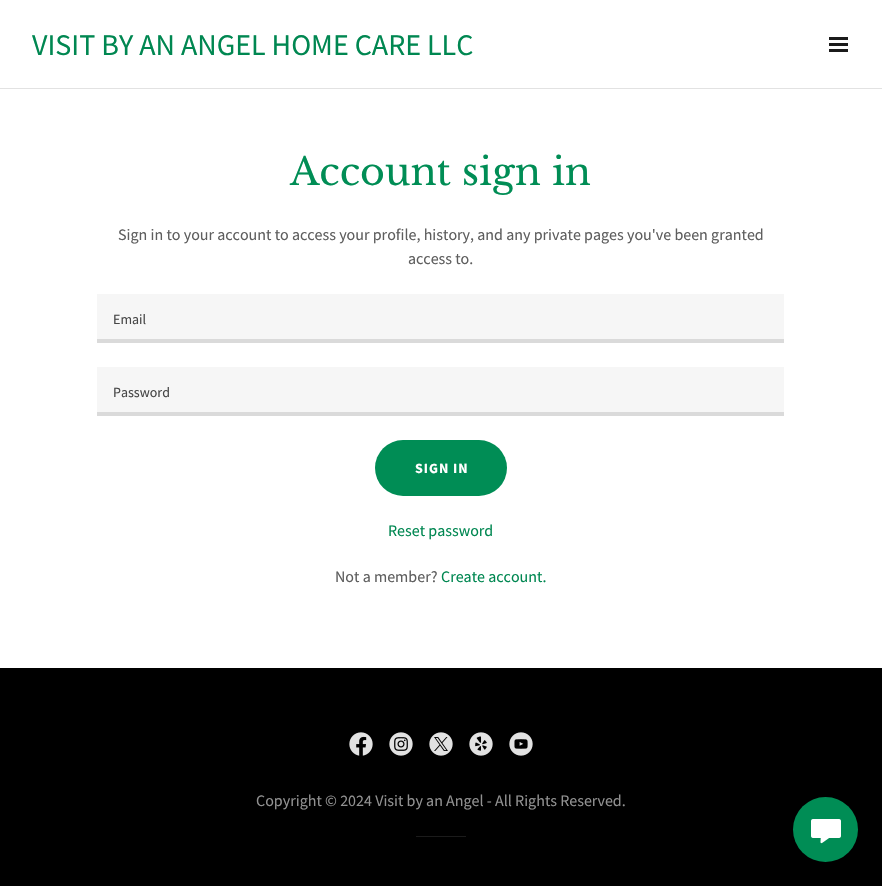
static SkFont makeFont(const char* family, int weight, float size, bool italic = false) {
  SkFontStyle style(weight, SkFontStyle::kNormal_Width,
    italic ? SkFontStyle::kItalic_Slant : SkFontStyle::kUpright_Slant);
  SkFont result(fontMgr->matchFamilyStyle(family, style), size);
  result.setSubpixel(true);
  return result;
}

static void text(SkCanvas* c, const char* s, float x, float y, const SkFont& font, SkColor color) {
  SkPaint ink(SkColor4f::FromColor(color));
  ink.setAntiAlias(true);
  c->drawString(s, x, y, font, ink);
}

static void spacedText(SkCanvas* c, const char* s, float x, float y, const SkFont& font, const SkPaint& ink, float letter, float word) {
  std::vector<SkGlyphID> glyphs(font.countText(s, strlen(s), SkTextEncoding::kUTF8));
  std::vector<float> xs(glyphs.size());
  font.textToGlyphs(s, strlen(s), SkTextEncoding::kUTF8, glyphs);
  font.getXPos(glyphs, xs, x);
  float extra = 0;
  for (size_t i = 0; i < glyphs.size(); i++) {
    xs[i] += extra;
    extra += letter + word * (glyphs[i] == font.unicharToGlyph(' '));
  }
  c->drawTextBlob(SkTextBlob::MakeFromPosHGlyphs(glyphs, xs, y, font), 0, 0, ink);
}

static void box(SkCanvas* c, float l, float t, float r, float b, SkColor color) {
  SkPaint ink(SkColor4f::FromColor(color));
  ink.setAntiAlias(true);
  c->drawRect(SkRect::MakeLTRB(l, t, r, b), ink);
}

static void roundBox(SkCanvas* c, float l, float t, float r, float b, float radius, SkColor color) {
  SkPaint ink(SkColor4f::FromColor(color));
  ink.setAntiAlias(true);
  c->drawRoundRect(SkRect::MakeLTRB(l, t, r, b), radius, radius, ink);
}

static void picture(SkCanvas* c, const char* path, float l, float t, float r, float b) {
  auto image = SkImages::DeferredFromEncodedData(SkData::MakeFromFileName(path));
  c->drawImageRect(image, SkRect::MakeLTRB(l, t, r, b), SkSamplingOptions());
}

void draw(SkCanvas* c) {
  SkPaint paint;
  paint.setAntiAlias(true);
  c->clear(0xff000000);
  box(c, 0, 0, 882, 88, 0xffffffff);
  SkFont face1 = makeFont("Source Sans Pro", 400, 30);
  text(c, "VISIT BY AN ANGEL HOME CARE LLC", 32, 55, face1, 0xff008751);
  box(c, 829, 37, 848, 40, 0xff1b1b1b);
  box(c, 829, 43, 848, 46, 0xff1b1b1b);
  box(c, 829, 49, 848, 52, 0xff1b1b1b);
  box(c, 0, 88, 882, 89, 0xffe2e2e2);
  box(c, 0, 89, 882, 668, 0xffffffff);
  SkFont face2 = makeFont("Libre Baskerville", 400, 38);
  text(c, "Account sign in", 290, 185, face2, 0xff008d55);
  SkFont face3 = makeFont("Source Sans Pro", 400, 16);
  text(c, "Sign in to your account to access your profile, history, and any private pages you've been granted", 118, 240, face3, 0xff5e5e5e);
  text(c, "access to.", 408, 264, face3, 0xff5e5e5e);
  box(c, 97, 294, 784, 339, 0xfff6f6f6);
  box(c, 97, 339, 784, 343, 0xffdadada);
  SkFont face4 = makeFont("Source Sans Pro", 400, 14);
  text(c, "Email", 113, 324, face4, 0xff474747);
  box(c, 97, 367, 784, 412, 0xfff6f6f6);
  box(c, 97, 412, 784, 416, 0xffdadada);
  text(c, "Password", 113, 397, face4, 0xff474747);
  roundBox(c, 375, 440, 507, 496, 28, 0xff008d55);
  SkFont face5 = makeFont("Source Sans Pro", 700, 14);
  paint.setColor(0xffffffff);
  spacedText(c, "SIGN IN", 415, 473, face5, paint, 1, 0);
  text(c, "Reset password", 388, 536, face3, 0xff008751);
  text(c, "Not a member?", 335, 582, face3, 0xff5e5e5e);
  text(c, "Create account.", 441, 582, face3, 0xff008751);
  picture(c, "img_01.png", 349, 732, 373, 756);
  picture(c, "img_02.png", 389, 732, 413, 756);
  picture(c, "img_03.png", 429, 732, 453, 756);
  picture(c, "img_04.png", 469, 732, 493, 756);
  picture(c, "img_05.png", 509, 732, 533, 756);
  text(c, "Copyright © 2024 Visit by an Angel - All Rights Reserved.", 256, 806, face3, 0xff919191);
  box(c, 416, 836, 466, 837, 0xff1b1b1b);
  paint.setColor(0xff008d55);
  c->drawCircle(825.5f, 829.5f, 32.5f, paint);
  picture(c, "img_06.png", 811, 819, 841, 844);
}
